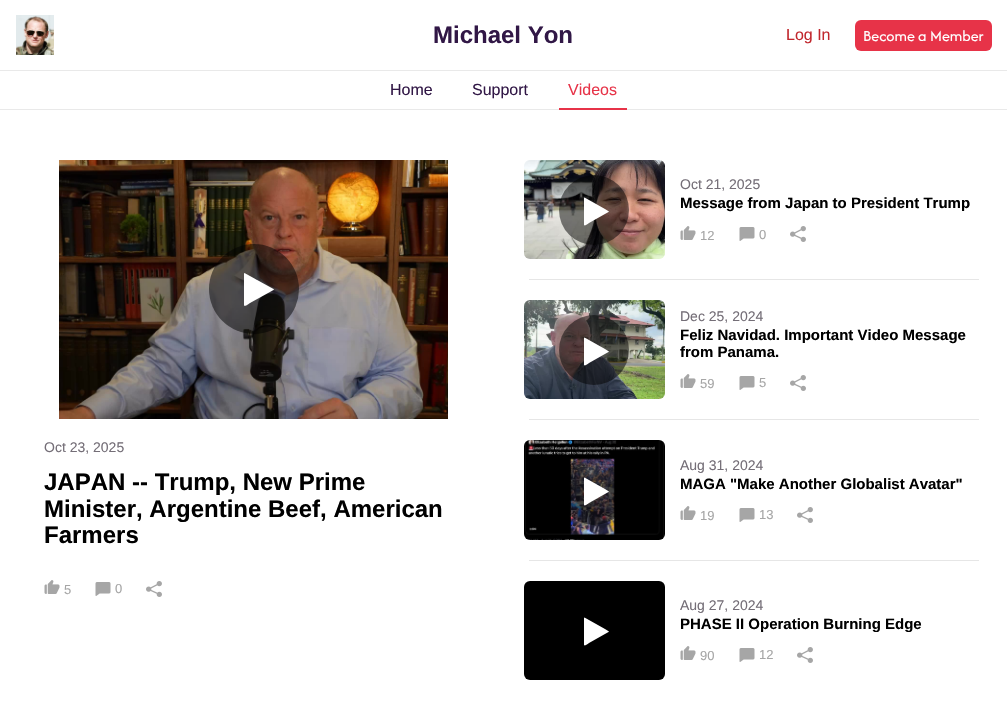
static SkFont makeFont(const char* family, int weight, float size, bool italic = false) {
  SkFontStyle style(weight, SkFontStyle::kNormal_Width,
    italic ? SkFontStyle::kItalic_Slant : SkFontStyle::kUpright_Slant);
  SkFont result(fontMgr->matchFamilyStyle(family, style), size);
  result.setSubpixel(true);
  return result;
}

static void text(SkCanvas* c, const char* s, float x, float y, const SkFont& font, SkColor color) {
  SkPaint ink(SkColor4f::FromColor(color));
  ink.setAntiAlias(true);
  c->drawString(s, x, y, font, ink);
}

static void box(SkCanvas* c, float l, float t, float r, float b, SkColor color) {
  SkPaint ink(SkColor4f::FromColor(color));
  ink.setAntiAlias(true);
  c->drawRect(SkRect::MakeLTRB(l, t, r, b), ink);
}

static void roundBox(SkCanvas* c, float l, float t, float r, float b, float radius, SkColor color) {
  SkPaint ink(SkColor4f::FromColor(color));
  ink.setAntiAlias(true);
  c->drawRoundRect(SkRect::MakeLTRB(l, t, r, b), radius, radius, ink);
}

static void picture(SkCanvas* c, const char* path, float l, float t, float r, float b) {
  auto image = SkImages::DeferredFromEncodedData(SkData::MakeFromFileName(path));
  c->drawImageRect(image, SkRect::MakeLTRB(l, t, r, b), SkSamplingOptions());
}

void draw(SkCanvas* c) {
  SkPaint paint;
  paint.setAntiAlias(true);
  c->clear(0xffffffff);
  box(c, 0, 70, 1007, 71, 0xffe9e9e9);
  picture(c, "img_01.png", 16, 15, 54, 55);
  SkFont face1 = makeFont("Liberation Sans", 700, 24);
  text(c, "Michael Yon", 433, 43, face1, 0xff311746);
  SkFont face2 = makeFont("Liberation Sans", 400, 16);
  text(c, "Log In", 786, 40, face2, 0xffc1272d);
  roundBox(c, 855, 20, 992, 51, 6, 0xffe73348);
  SkFont face3 = makeFont("Afacad", 400, 16);
  text(c, "Become a Member", 863, 41, face3, 0xffffffff);
  box(c, 0, 109, 1007, 110, 0xffe9e9e9);
  text(c, "Home", 390, 95, face2, 0xff311746);
  text(c, "Support", 472, 95, face2, 0xff311746);
  text(c, "Videos", 568, 95, face2, 0xffe73348);
  box(c, 559, 108, 627, 110, 0xffe73348);
  picture(c, "img_02.png", 59, 160, 448, 419);
  paint.setColor(0x80000000);
  c->drawCircle(254, 289, 45, paint);
  paint.setColor(0xffffffff);
  c->drawPath(SkPathBuilder().moveTo(273.5f, 290).lineTo(250, 303).cubicTo(249.5f, 303.5f, 245, 307, 244, 305.5f).lineTo(244, 273.5f).lineTo(244.5f, 273).lineTo(273.5f, 289).lineTo(274, 289.5f).close().detach(), paint);
  SkFont face4 = makeFont("Liberation Sans", 400, 14);
  text(c, "Oct 23, 2025", 44, 452, face4, 0xff746e77);
  text(c, "JAPAN -- Trump, New Prime", 44, 490, face1, 0xff000000);
  text(c, "Minister, Argentine Beef, American", 44, 517, face1, 0xff000000);
  text(c, "Farmers", 44, 543, face1, 0xff000000);
  picture(c, "img_03.png", 44, 580, 60, 594);
  SkFont face5 = makeFont("Liberation Sans", 400, 13);
  text(c, "5", 64, 594, face5, 0xffa6a6a6);
  picture(c, "img_04.png", 95, 582, 111, 596);
  text(c, "0", 115, 593, face5, 0xffa6a6a6);
  picture(c, "img_05.png", 146, 581, 162, 597);
  picture(c, "img_06.png", 524, 160, 665, 259);
  paint.setColor(0x80000000);
  c->drawCircle(594, 210, 35, paint);
  paint.setColor(0xffffffff);
  c->drawPath(SkPathBuilder().moveTo(608.5f, 212).lineTo(589, 223).cubicTo(588.5f, 223.5f, 585, 226.5f, 584, 225).lineTo(584, 198).lineTo(584.5f, 197.5f).lineTo(605, 209).lineTo(609, 211.5f).close().detach(), paint);
  text(c, "Oct 21, 2025", 680, 189, face4, 0xff746e77);
  SkFont face6 = makeFont("Liberation Sans", 700, 15);
  text(c, "Message from Japan to President Trump", 680, 208, face6, 0xff000000);
  picture(c, "img_03.png", 680, 226, 696, 240);
  text(c, "12", 700, 240, face5, 0xffa6a6a6);
  picture(c, "img_04.png", 739, 227, 755, 241);
  text(c, "0", 759, 239, face5, 0xffa6a6a6);
  picture(c, "img_05.png", 790, 226, 806, 242);
  box(c, 529, 279, 979, 280, 0xffe6e6e6);
  picture(c, "img_07.png", 524, 300, 665, 399);
  paint.setColor(0x80000000);
  c->drawCircle(594, 350, 35, paint);
  paint.setColor(0xffffffff);
  c->drawPath(SkPathBuilder().moveTo(608.5f, 352).lineTo(589, 363).cubicTo(588.5f, 363.5f, 585, 366.5f, 584, 365).lineTo(584, 338).lineTo(584.5f, 337.5f).lineTo(605, 349).lineTo(609, 351.5f).close().detach(), paint);
  text(c, "Dec 25, 2024", 680, 321, face4, 0xff746e77);
  text(c, "Feliz Navidad. Important Video Message", 680, 340, face6, 0xff000000);
  text(c, "from Panama.", 680, 357, face6, 0xff000000);
  picture(c, "img_03.png", 680, 374, 696, 388);
  text(c, "59", 700, 388, face5, 0xffa6a6a6);
  picture(c, "img_04.png", 739, 376, 755, 390);
  text(c, "5", 759, 387, face5, 0xffa6a6a6);
  picture(c, "img_05.png", 790, 375, 806, 391);
  box(c, 529, 419, 979, 420, 0xffe6e6e6);
  picture(c, "img_08.png", 524, 440, 665, 540);
  paint.setColor(0x80000000);
  c->drawCircle(594, 490, 35, paint);
  paint.setColor(0xffffffff);
  c->drawPath(SkPathBuilder().moveTo(608.5f, 492).lineTo(589, 503).cubicTo(588.5f, 503.5f, 585, 506.5f, 584, 505).lineTo(584, 478).lineTo(584.5f, 477.5f).lineTo(605, 489).lineTo(609, 491.5f).close().detach(), paint);
  text(c, "Aug 31, 2024", 680, 470, face4, 0xff746e77);
  text(c, "MAGA \"Make Another Globalist Avatar\"", 680, 489, face6, 0xff000000);
  picture(c, "img_03.png", 680, 506, 696, 520);
  text(c, "19", 700, 520, face5, 0xffa6a6a6);
  picture(c, "img_04.png", 739, 508, 755, 522);
  text(c, "13", 759, 519, face5, 0xffa6a6a6);
  picture(c, "img_05.png", 797, 507, 813, 523);
  box(c, 529, 560, 979, 561, 0xffe6e6e6);
  picture(c, "img_09.png", 524, 581, 665, 680);
  c->drawPath(SkPathBuilder().moveTo(608.5f, 632).lineTo(589, 643).cubicTo(588.5f, 643.5f, 585, 646.5f, 584, 645).lineTo(584, 618).lineTo(584.5f, 617.5f).lineTo(605, 629).lineTo(609, 631.5f).close().detach(), paint);
  text(c, "Aug 27, 2024", 680, 610, face4, 0xff746e77);
  c->save();
  c->clipRect(SkRect::MakeLTRB(680, 616, 984, 632));
  text(c, "PHASE II Operation Burning Edge", 680, 629, face6, 0xff000000);
  c->restore();
  picture(c, "img_03.png", 680, 646, 696, 660);
  text(c, "90", 700, 660, face5, 0xffa6a6a6);
  picture(c, "img_04.png", 739, 648, 755, 662);
  text(c, "12", 759, 659, face5, 0xffa6a6a6);
  picture(c, "img_05.png", 797, 647, 813, 663);
}
